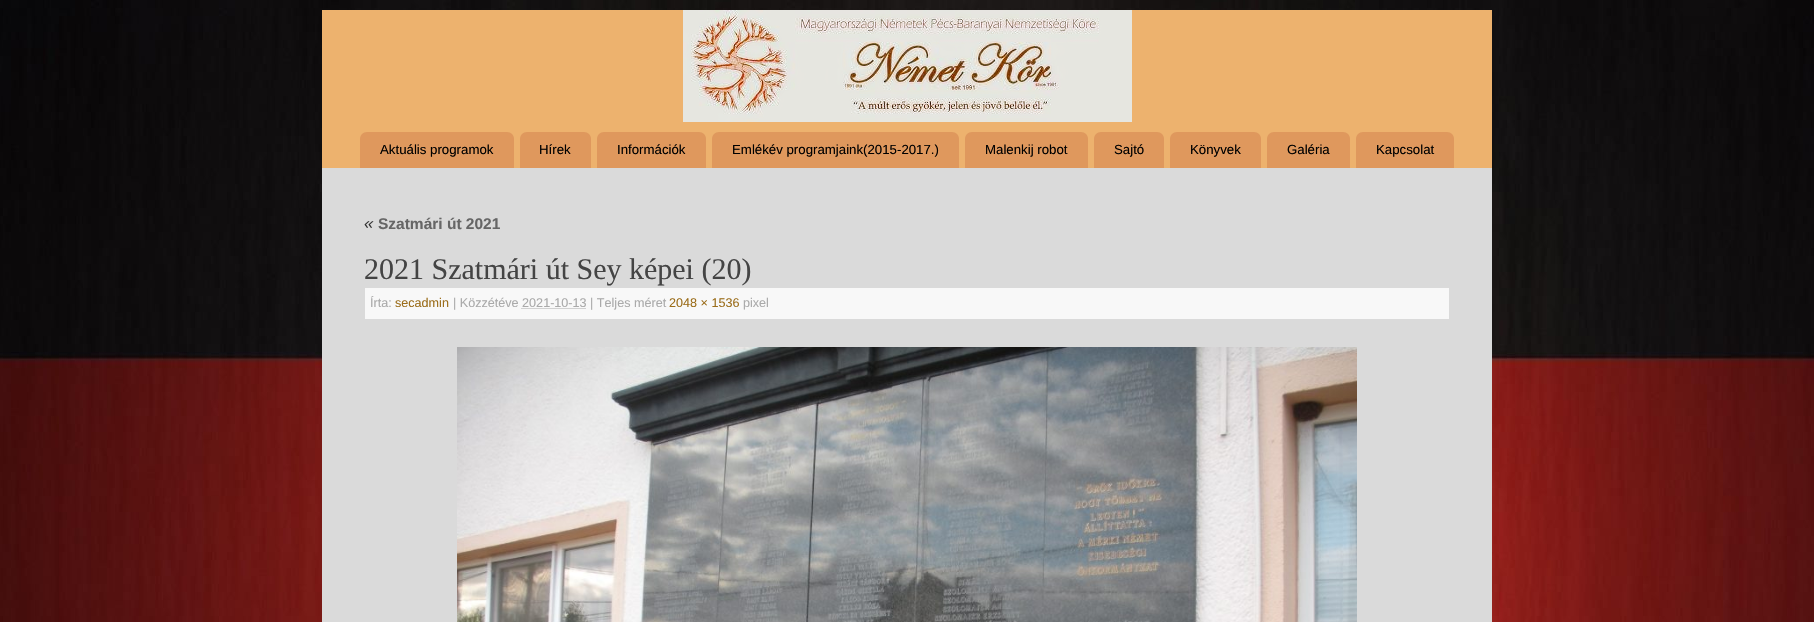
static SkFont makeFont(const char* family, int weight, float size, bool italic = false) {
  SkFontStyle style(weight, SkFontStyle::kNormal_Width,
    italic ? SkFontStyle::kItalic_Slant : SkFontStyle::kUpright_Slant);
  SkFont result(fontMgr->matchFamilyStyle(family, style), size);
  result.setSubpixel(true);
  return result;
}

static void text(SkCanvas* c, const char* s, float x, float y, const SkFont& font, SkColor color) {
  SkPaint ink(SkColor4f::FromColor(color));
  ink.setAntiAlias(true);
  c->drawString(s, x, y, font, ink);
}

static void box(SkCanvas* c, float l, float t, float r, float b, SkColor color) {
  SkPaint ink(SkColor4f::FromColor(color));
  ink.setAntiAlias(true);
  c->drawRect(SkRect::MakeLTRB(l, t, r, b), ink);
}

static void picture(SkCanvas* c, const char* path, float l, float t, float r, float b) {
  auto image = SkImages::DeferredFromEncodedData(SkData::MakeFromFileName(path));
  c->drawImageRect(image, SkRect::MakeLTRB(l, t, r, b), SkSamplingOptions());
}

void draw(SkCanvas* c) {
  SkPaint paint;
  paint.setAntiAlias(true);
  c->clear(0xffffffff);
  picture(c, "img_01.png", 0, 0, 1814, 622);
  box(c, 322, 10, 1492, 168, 0xffedb26e);
  picture(c, "img_02.png", 683, 10, 1132, 122);
  paint.setColor(0xffdf985d);
  c->drawPath(SkPathBuilder().moveTo(367, 132).lineTo(507, 132).cubicTo(511, 132, 514, 135, 514, 139).lineTo(514, 168).lineTo(360, 168).lineTo(360, 139).cubicTo(360, 135, 363, 132, 367, 132).close().detach(), paint);
  SkFont face1 = makeFont("Liberation Sans", 400, 13.25f);
  text(c, "Aktuális programok", 380, 154, face1, 0xff000000);
  c->drawPath(SkPathBuilder().moveTo(527, 132).lineTo(584, 132).cubicTo(588, 132, 591, 135, 591, 139).lineTo(591, 168).lineTo(520, 168).lineTo(520, 139).cubicTo(520, 135, 523, 132, 527, 132).close().detach(), paint);
  text(c, "Hírek", 539, 154, face1, 0xff000000);
  c->drawPath(SkPathBuilder().moveTo(604, 132).lineTo(699, 132).cubicTo(703, 132, 706, 135, 706, 139).lineTo(706, 168).lineTo(597, 168).lineTo(597, 139).cubicTo(597, 135, 600, 132, 604, 132).close().detach(), paint);
  text(c, "Információk", 617, 154, face1, 0xff000000);
  c->drawPath(SkPathBuilder().moveTo(719, 132).lineTo(952, 132).cubicTo(956, 132, 959, 135, 959, 139).lineTo(959, 168).lineTo(712, 168).lineTo(712, 139).cubicTo(712, 135, 715, 132, 719, 132).close().detach(), paint);
  text(c, "Emlékév programjaink(2015-2017.)", 732, 154, face1, 0xff000000);
  c->drawPath(SkPathBuilder().moveTo(972, 132).lineTo(1081, 132).cubicTo(1085, 132, 1088, 135, 1088, 139).lineTo(1088, 168).lineTo(965, 168).lineTo(965, 139).cubicTo(965, 135, 968, 132, 972, 132).close().detach(), paint);
  text(c, "Malenkij robot", 985, 154, face1, 0xff000000);
  c->drawPath(SkPathBuilder().moveTo(1101, 132).lineTo(1157, 132).cubicTo(1161, 132, 1164, 135, 1164, 139).lineTo(1164, 168).lineTo(1094, 168).lineTo(1094, 139).cubicTo(1094, 135, 1097, 132, 1101, 132).close().detach(), paint);
  text(c, "Sajtó", 1114, 154, face1, 0xff000000);
  c->drawPath(SkPathBuilder().moveTo(1177, 132).lineTo(1254, 132).cubicTo(1258, 132, 1261, 135, 1261, 139).lineTo(1261, 168).lineTo(1170, 168).lineTo(1170, 139).cubicTo(1170, 135, 1173, 132, 1177, 132).close().detach(), paint);
  text(c, "Könyvek", 1190, 154, face1, 0xff000000);
  c->drawPath(SkPathBuilder().moveTo(1274, 132).lineTo(1343, 132).cubicTo(1347, 132, 1350, 135, 1350, 139).lineTo(1350, 168).lineTo(1267, 168).lineTo(1267, 139).cubicTo(1267, 135, 1270, 132, 1274, 132).close().detach(), paint);
  text(c, "Galéria", 1287, 154, face1, 0xff000000);
  c->drawPath(SkPathBuilder().moveTo(1363, 132).lineTo(1447, 132).cubicTo(1451, 132, 1454, 135, 1454, 139).lineTo(1454, 168).lineTo(1356, 168).lineTo(1356, 139).cubicTo(1356, 135, 1359, 132, 1363, 132).close().detach(), paint);
  text(c, "Kapcsolat", 1376, 154, face1, 0xff000000);
  box(c, 322, 168, 1492, 622, 0xffdadada);
  SkFont face2 = makeFont("Liberation Sans", 400, 17, true);
  text(c, "«", 364, 229, face2, 0xff333333);
  SkFont face3 = makeFont("Liberation Sans", 700, 15.5f);
  text(c, "Szatmári út 2021", 378, 229, face3, 0xff666666);
  SkFont face4 = makeFont("Liberation Serif", 400, 30);
  text(c, "2021 Szatmári út Sey képei (20)", 364, 279, face4, 0xff444444);
  box(c, 365, 288, 1449, 319, 0xfff8f8f8);
  SkFont face5 = makeFont("Liberation Sans", 400, 12.6f);
  text(c, "Írta:", 370, 307, face5, 0xffaaaaaa);
  text(c, "secadmin", 395, 307, face5, 0xff9b6d1a);
  text(c, "| Közzétéve 2021-10-13 | Teljes méret", 453, 307, face5, 0xffaaaaaa);
  text(c, "2048 × 1536", 669, 307, face5, 0xff9b6d1a);
  text(c, "pixel", 743, 307, face5, 0xffaaaaaa);
  paint.setStyle(SkPaint::kStroke_Style);
  paint.setStrokeWidth(1);
  paint.setColor(0xffaaaaaa);
  paint.setPathEffect(SkDashPathEffect::Make({{1, 1}}, 0));
  c->drawPath(SkPathBuilder().moveTo(521.5f, 308.5f).lineTo(586, 308.5f).detach(), paint);
  paint.setPathEffect(nullptr);
  picture(c, "img_03.png", 457, 347, 1357, 622);
}
